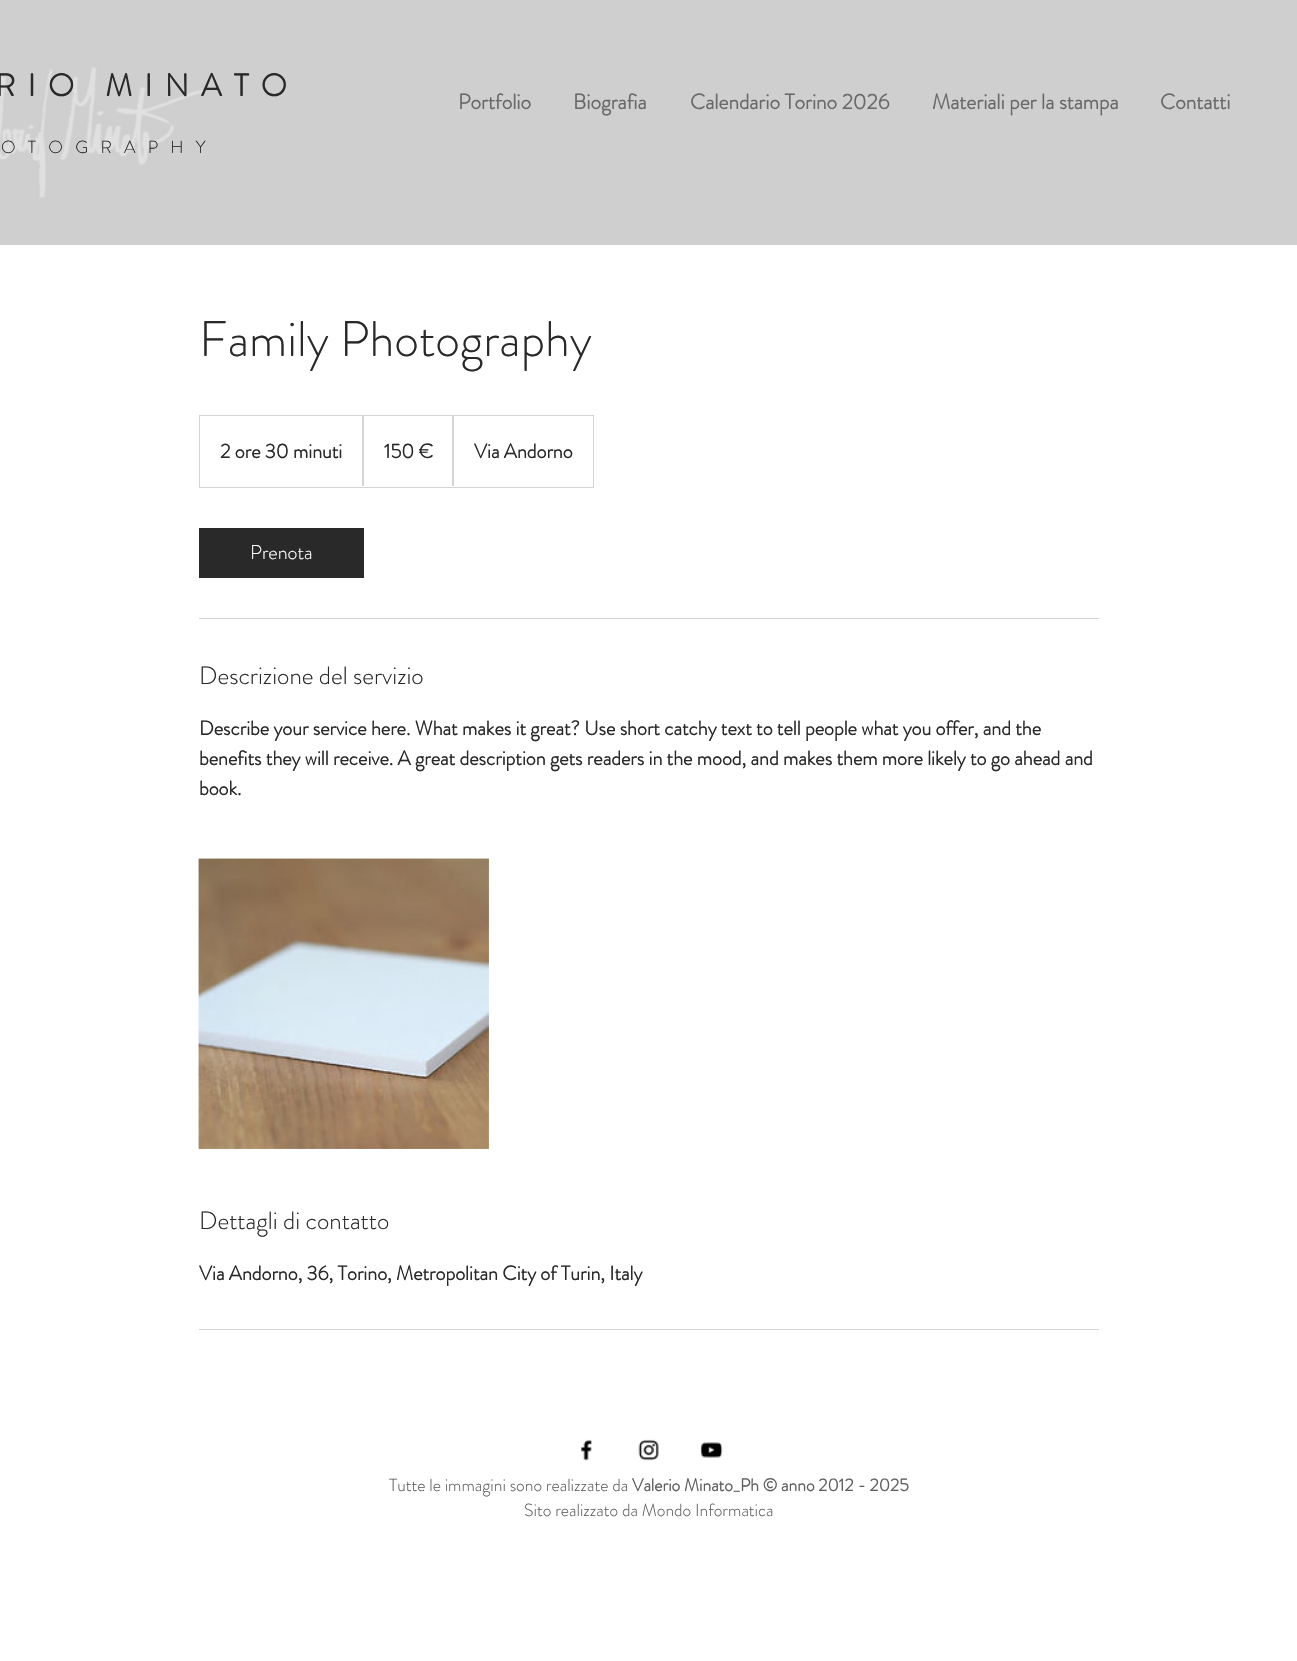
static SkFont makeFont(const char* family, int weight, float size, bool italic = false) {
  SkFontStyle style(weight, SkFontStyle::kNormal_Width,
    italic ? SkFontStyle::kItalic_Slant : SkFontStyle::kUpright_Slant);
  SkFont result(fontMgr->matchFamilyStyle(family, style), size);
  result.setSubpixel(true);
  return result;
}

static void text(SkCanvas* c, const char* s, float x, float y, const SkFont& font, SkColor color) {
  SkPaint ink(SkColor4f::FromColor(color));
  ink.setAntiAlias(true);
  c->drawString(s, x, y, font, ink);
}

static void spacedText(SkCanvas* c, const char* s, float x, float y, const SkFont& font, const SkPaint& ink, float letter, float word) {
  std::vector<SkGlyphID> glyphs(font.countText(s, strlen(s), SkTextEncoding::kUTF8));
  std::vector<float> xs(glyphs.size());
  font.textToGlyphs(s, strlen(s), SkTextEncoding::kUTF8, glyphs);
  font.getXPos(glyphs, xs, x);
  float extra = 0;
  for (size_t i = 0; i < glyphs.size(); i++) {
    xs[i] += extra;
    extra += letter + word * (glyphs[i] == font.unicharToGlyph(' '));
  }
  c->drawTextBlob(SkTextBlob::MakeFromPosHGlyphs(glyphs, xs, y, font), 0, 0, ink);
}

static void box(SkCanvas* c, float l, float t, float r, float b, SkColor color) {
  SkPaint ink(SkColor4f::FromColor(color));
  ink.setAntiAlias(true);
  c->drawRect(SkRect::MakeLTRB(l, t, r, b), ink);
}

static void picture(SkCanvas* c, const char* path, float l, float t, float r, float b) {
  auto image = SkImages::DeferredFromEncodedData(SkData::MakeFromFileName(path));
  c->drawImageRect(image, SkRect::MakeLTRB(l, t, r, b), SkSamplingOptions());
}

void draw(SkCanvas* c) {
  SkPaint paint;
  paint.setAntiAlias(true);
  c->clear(0xffffffff);
  box(c, 0, 0, 1297, 245, 0xffcfcfcf);
  picture(c, "img_01.png", 0, 67, 206, 198);
  SkFont face1 = makeFont("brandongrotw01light", 700, 31.25f);
  paint.setColor(0xff292929);
  spacedText(c, "RIO MINATO", -5, 96, face1, paint, 12.25f, 0);
  SkFont face2 = makeFont("brandongrotw01light", 300, 17.5f);
  spacedText(c, "OTOGRAPHY", 1, 153, face2, paint, 12.25f, 0);
  SkFont face3 = makeFont("brandongrotw01light", 700, 21.25f);
  text(c, "Portfolio", 458, 109, face3, 0xff696969);
  text(c, "Biografia", 573, 109, face3, 0xff696969);
  text(c, "Calendario Torino 2026", 690, 109, face3, 0xff696969);
  text(c, "Materiali per la stampa", 932, 109, face3, 0xff696969);
  text(c, "Contatti", 1160, 109, face3, 0xff696969);
  SkFont face4 = makeFont("brandongrotw01light", 300, 50);
  text(c, "Family Photography", 199, 356, face4, 0xff292929);
  paint.setStyle(SkPaint::kStroke_Style);
  paint.setStrokeWidth(1);
  paint.setColor(0xffd4d4d4);
  c->drawRect(SkRect::MakeLTRB(199.5f, 415.5f, 593.5f, 487.5f), paint);
  SkFont face5 = makeFont("brandongrotw01light", 700, 20);
  text(c, "2 ore 30 minuti", 220, 458, face5, 0xff292929);
  paint.setStyle(SkPaint::kFill_Style);
  c->drawPath(SkPathBuilder().moveTo(362, 486).lineTo(362, 415).lineTo(364, 416).lineTo(364, 486).close().detach(), paint);
  text(c, "150 €", 384, 458, face5, 0xff292929);
  c->drawPath(SkPathBuilder().moveTo(452, 486).lineTo(452, 415).lineTo(454, 416).lineTo(454, 486).close().detach(), paint);
  text(c, "Via Andorno", 474, 458, face5, 0xff292929);
  box(c, 199, 528, 364, 578, 0xff292929);
  SkFont face6 = makeFont("brandongrotw01light", 300, 20);
  text(c, "Prenota", 250, 559, face6, 0xffffffff);
  box(c, 199, 618, 1099, 619, 0xffd4d4d4);
  SkFont face7 = makeFont("brandongrotw01light", 300, 25);
  text(c, "Descrizione del servizio", 199, 684, face7, 0xff292929);
  text(c, "Describe your service here. What makes it great? Use short catchy text to tell people what you offer, and the", 199, 735, face5, 0xff292929);
  text(c, "benefits they will receive. A great description gets readers in the mood, and makes them more likely to go ahead and", 199, 765, face5, 0xff292929);
  text(c, "book.", 199, 795, face5, 0xff292929);
  picture(c, "img_02.png", 198, 858, 489, 1149);
  picture(c, "img_03.png", 198, 858, 489, 1149);
  text(c, "Dettagli di contatto", 199, 1229, face7, 0xff292929);
  text(c, "Via Andorno, 36, Torino, Metropolitan City of Turin, Italy", 199, 1280, face5, 0xff292929);
  box(c, 199, 1329, 1099, 1330, 0xffd4d4d4);
  picture(c, "img_04.png", 581, 1439, 592, 1461);
  picture(c, "img_05.png", 638, 1439, 659, 1461);
  picture(c, "img_06.png", 700, 1442, 723, 1458);
  text(c, "Tutte le immagini sono realizzate da", 389, 1491, face2, 0xff605e5e);
  SkFont face8 = makeFont("brandongrotw01light", 700, 17.5f);
  text(c, "Valerio Minato_Ph © anno 2012 - 2025", 632, 1491, face8, 0xff605e5e);
  text(c, "Sito realizzato da Mondo Informatica", 524, 1516, face2, 0xff605e5e);
}
